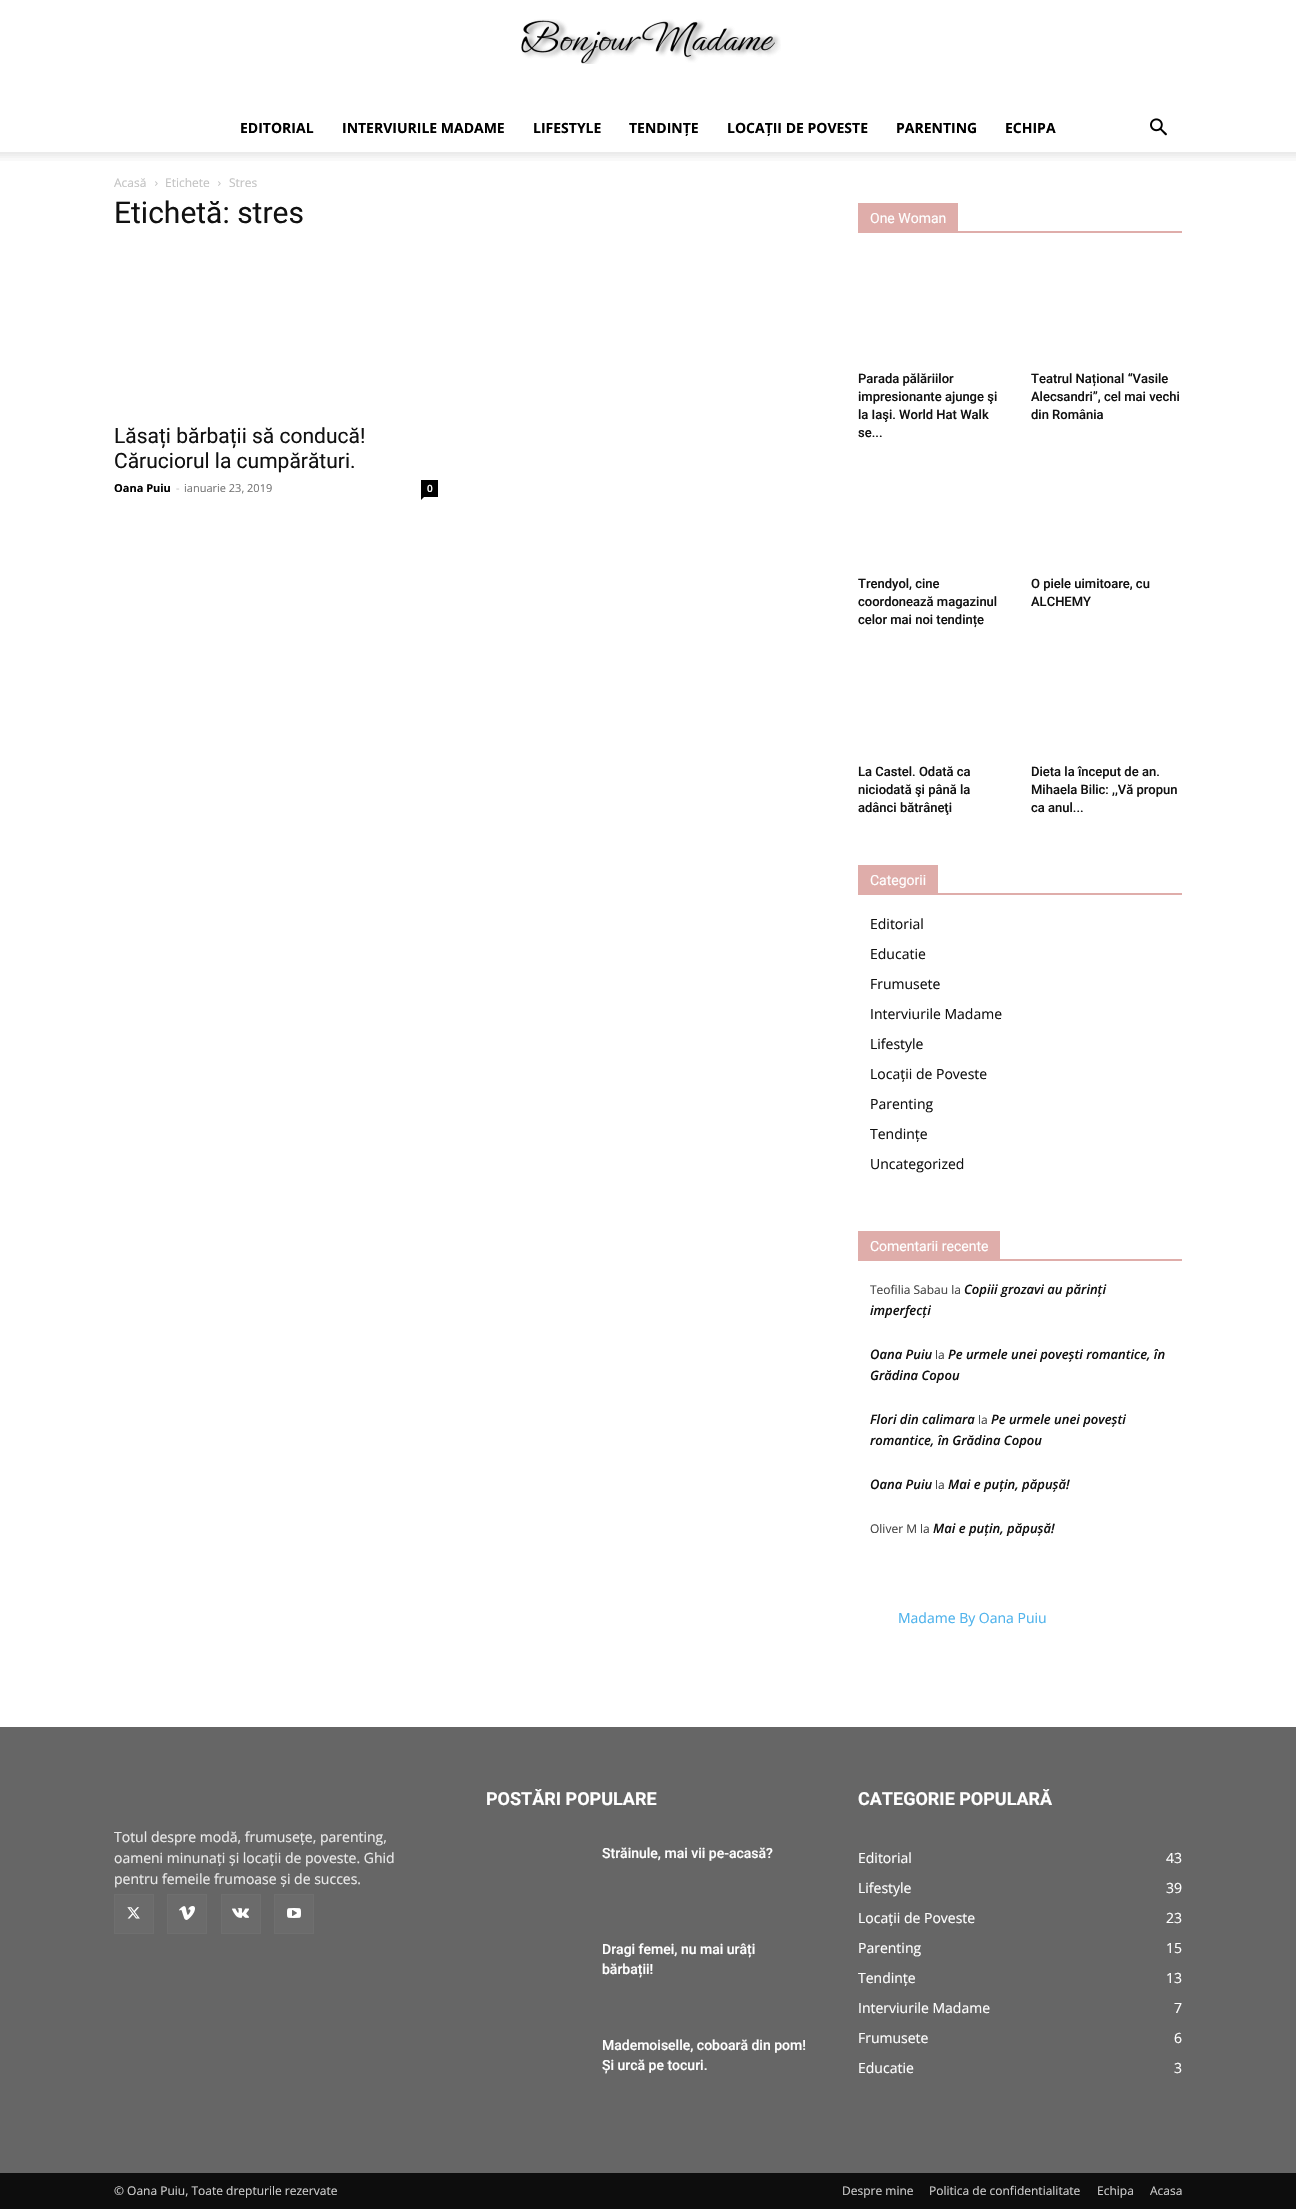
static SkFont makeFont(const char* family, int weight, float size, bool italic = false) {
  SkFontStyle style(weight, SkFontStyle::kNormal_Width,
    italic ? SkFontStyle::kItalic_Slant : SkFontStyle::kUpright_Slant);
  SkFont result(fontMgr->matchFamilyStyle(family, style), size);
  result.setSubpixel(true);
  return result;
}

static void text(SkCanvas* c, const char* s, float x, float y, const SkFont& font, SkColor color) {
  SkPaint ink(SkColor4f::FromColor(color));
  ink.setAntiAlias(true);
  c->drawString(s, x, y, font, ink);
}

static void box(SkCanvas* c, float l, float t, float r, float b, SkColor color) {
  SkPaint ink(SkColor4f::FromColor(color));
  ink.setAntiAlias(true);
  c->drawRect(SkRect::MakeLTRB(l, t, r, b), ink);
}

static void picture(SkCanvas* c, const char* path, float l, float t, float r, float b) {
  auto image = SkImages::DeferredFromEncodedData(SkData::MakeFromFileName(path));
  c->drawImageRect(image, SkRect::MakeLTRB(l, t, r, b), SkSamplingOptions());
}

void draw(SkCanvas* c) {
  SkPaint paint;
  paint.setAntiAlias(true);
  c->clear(0xffffffff);
  picture(c, "img_01.png", 521, 19, 781, 64);
  SkFont face1 = makeFont("Open Sans", 700, 14);
  text(c, "EDITORIAL", 240, 133, face1, 0xff000000);
  text(c, "INTERVIURILE MADAME", 342, 133, face1, 0xff000000);
  text(c, "LIFESTYLE", 533, 133, face1, 0xff000000);
  text(c, "TENDINȚE", 629, 133, face1, 0xff000000);
  text(c, "LOCAȚII DE POVESTE", 727, 133, face1, 0xff000000);
  text(c, "PARENTING", 896, 133, face1, 0xff000000);
  text(c, "ECHIPA", 1005, 133, face1, 0xff000000);
  picture(c, "img_02.png", 1150, 118, 1167, 136);
  picture(c, "img_03.png", 0, 152, 1296, 161);
  SkFont face2 = makeFont("Open Sans", 400, 12);
  text(c, "Acasă", 114, 187, face2, 0xffc3c3c3);
  picture(c, "img_04.png", 155, 181, 158, 186);
  text(c, "Etichete", 165, 187, face2, 0xffc3c3c3);
  picture(c, "img_04.png", 218, 181, 221, 186);
  text(c, "Stres", 229, 187, face2, 0xffc3c3c3);
  SkFont face3 = makeFont("Roboto", 400, 30);
  text(c, "Etichetă: stres", 114, 223, face3, 0xff111111);
  SkFont face4 = makeFont("Roboto", 400, 21);
  text(c, "Lăsați bărbații să conducă!", 114, 443, face4, 0xff111111);
  text(c, "Căruciorul la cumpărături.", 114, 468, face4, 0xff111111);
  SkFont face5 = makeFont("Open Sans", 700, 11);
  text(c, "Oana Puiu", 114, 492, face5, 0xff000000);
  SkFont face6 = makeFont("Open Sans", 400, 11);
  text(c, "-", 176, 492, face6, 0xffcccccc);
  text(c, "ianuarie 23, 2019", 184, 492, face6, 0xff767676);
  box(c, 421, 480, 438, 497, 0xff000000);
  SkFont face7 = makeFont("Open Sans", 600, 10);
  text(c, "0", 427, 492, face7, 0xffffffff);
  paint.setColor(0xff000000);
  c->drawPath(SkPathBuilder().moveTo(421, 497).lineTo(424, 497).lineTo(421, 500).close().detach(), paint);
  box(c, 858, 231, 1182, 233, 0xffdfadaa);
  box(c, 858, 203, 958, 231, 0xffdfadaa);
  SkFont face8 = makeFont("Roboto", 400, 14);
  text(c, "One Woman", 870, 223, face8, 0xffffffff);
  SkFont face9 = makeFont("Roboto", 500, 13);
  text(c, "Parada pălăriilor", 858, 383, face9, 0xff111111);
  text(c, "impresionante ajunge şi", 858, 401, face9, 0xff111111);
  text(c, "la Iaşi. World Hat Walk", 858, 419, face9, 0xff111111);
  text(c, "se...", 858, 437, face9, 0xff111111);
  text(c, "Teatrul Național “Vasile", 1031, 383, face9, 0xff111111);
  text(c, "Alecsandri”, cel mai vechi", 1031, 401, face9, 0xff111111);
  text(c, "din România", 1031, 419, face9, 0xff111111);
  text(c, "Trendyol, cine", 858, 588, face9, 0xff111111);
  text(c, "coordonează magazinul", 858, 606, face9, 0xff111111);
  text(c, "celor mai noi tendințe", 858, 624, face9, 0xff111111);
  text(c, "O piele uimitoare, cu", 1031, 588, face9, 0xff111111);
  text(c, "ALCHEMY", 1031, 606, face9, 0xff111111);
  text(c, "La Castel. Odată ca", 858, 776, face9, 0xff111111);
  text(c, "niciodată şi până la", 858, 794, face9, 0xff111111);
  text(c, "adânci bătrâneţi", 858, 812, face9, 0xff111111);
  text(c, "Dieta la început de an.", 1031, 776, face9, 0xff111111);
  text(c, "Mihaela Bilic: ,,Vă propun", 1031, 794, face9, 0xff111111);
  text(c, "ca anul...", 1031, 812, face9, 0xff111111);
  box(c, 858, 893, 1182, 895, 0xffdfadaa);
  box(c, 858, 865, 938, 893, 0xffdfadaa);
  text(c, "Categorii", 870, 885, face8, 0xffffffff);
  SkFont face10 = makeFont("Open Sans", 400, 14);
  text(c, "Editorial", 870, 929, face10, 0xff111111);
  text(c, "Educatie", 870, 959, face10, 0xff111111);
  text(c, "Frumusete", 870, 989, face10, 0xff111111);
  text(c, "Interviurile Madame", 870, 1019, face10, 0xff111111);
  text(c, "Lifestyle", 870, 1049, face10, 0xff111111);
  text(c, "Locații de Poveste", 870, 1079, face10, 0xff111111);
  text(c, "Parenting", 870, 1109, face10, 0xff111111);
  text(c, "Tendințe", 870, 1139, face10, 0xff111111);
  text(c, "Uncategorized", 870, 1169, face10, 0xff111111);
  box(c, 858, 1259, 1182, 1261, 0xffdfadaa);
  box(c, 858, 1231, 1000, 1259, 0xffdfadaa);
  text(c, "Comentarii recente", 870, 1251, face8, 0xffffffff);
  text(c, "Teofilia Sabau la", 870, 1294, face2, 0xff444444);
  SkFont face11 = makeFont("Open Sans", 600, 13, true);
  text(c, "Copiii grozavi au părinți", 964, 1294, face11, 0xff111111);
  text(c, "imperfecți", 870, 1315, face11, 0xff111111);
  text(c, "Oana Puiu", 870, 1359, face11, 0xff111111);
  text(c, "la", 935, 1359, face2, 0xff444444);
  text(c, "Pe urmele unei povești romantice, în", 948, 1359, face11, 0xff111111);
  text(c, "Grădina Copou", 870, 1380, face11, 0xff111111);
  text(c, "Flori din calimara", 870, 1424, face11, 0xff111111);
  text(c, "la", 978, 1424, face2, 0xff444444);
  text(c, "Pe urmele unei povești", 991, 1424, face11, 0xff111111);
  text(c, "romantice, în Grădina Copou", 870, 1445, face11, 0xff111111);
  text(c, "Oana Puiu", 870, 1489, face11, 0xff111111);
  text(c, "la", 935, 1489, face2, 0xff444444);
  text(c, "Mai e puțin, păpușă!", 948, 1489, face11, 0xff111111);
  text(c, "Oliver M la", 870, 1533, face2, 0xff444444);
  text(c, "Mai e puțin, păpușă!", 933, 1533, face11, 0xff111111);
  text(c, "Madame By Oana Puiu", 898, 1623, face10, 0xff4db2ec);
  box(c, 0, 1727, 1296, 2173, 0xff666666);
  text(c, "Totul despre modă, frumusețe, parenting,", 114, 1842, face10, 0xffeaeaea);
  text(c, "oameni minunați și locații de poveste. Ghid", 114, 1863, face10, 0xffeaeaea);
  text(c, "pentru femeile frumoase și de succes.", 114, 1884, face10, 0xffeaeaea);
  box(c, 115, 1895, 153, 1933, 0xff6b6b6b);
  picture(c, "img_05.png", 127, 1907, 140, 1919);
  paint.setStyle(SkPaint::kStroke_Style);
  paint.setStrokeWidth(1);
  paint.setColor(0xff6f6f6f);
  c->drawRect(SkRect::MakeLTRB(114.5f, 1894.5f, 153.5f, 1933.5f), paint);
  box(c, 168, 1895, 206, 1933, 0xff6b6b6b);
  picture(c, "img_06.png", 179, 1906, 195, 1920);
  c->drawRect(SkRect::MakeLTRB(167.5f, 1894.5f, 206.5f, 1933.5f), paint);
  box(c, 222, 1895, 260, 1933, 0xff6b6b6b);
  picture(c, "img_07.png", 232, 1908, 249, 1918);
  c->drawRect(SkRect::MakeLTRB(221.5f, 1894.5f, 260.5f, 1933.5f), paint);
  box(c, 275, 1895, 313, 1933, 0xff6b6b6b);
  picture(c, "img_08.png", 287, 1908, 301, 1918);
  c->drawRect(SkRect::MakeLTRB(274.5f, 1894.5f, 313.5f, 1933.5f), paint);
  SkFont face12 = makeFont("Roboto", 700, 18);
  text(c, "POSTĂRI POPULARE", 486, 1805, face12, 0xffffffff);
  SkFont face13 = makeFont("Roboto", 500, 14);
  text(c, "Străinule, mai vii pe-acasă?", 602, 1858, face13, 0xffffffff);
  text(c, "Dragi femei, nu mai urâți", 602, 1954, face13, 0xffffffff);
  text(c, "bărbații!", 602, 1974, face13, 0xffffffff);
  text(c, "Mademoiselle, coboară din pom!", 602, 2050, face13, 0xffffffff);
  text(c, "Și urcă pe tocuri.", 602, 2070, face13, 0xffffffff);
  text(c, "CATEGORIE POPULARĂ", 858, 1805, face12, 0xffffffff);
  text(c, "Editorial", 858, 1863, face10, 0xffffffff);
  text(c, "43", 1166, 1863, face10, 0xffffffff);
  text(c, "Lifestyle", 858, 1893, face10, 0xffffffff);
  text(c, "39", 1166, 1893, face10, 0xffffffff);
  text(c, "Locații de Poveste", 858, 1923, face10, 0xffffffff);
  text(c, "23", 1166, 1923, face10, 0xffffffff);
  text(c, "Parenting", 858, 1953, face10, 0xffffffff);
  text(c, "15", 1166, 1953, face10, 0xffffffff);
  text(c, "Tendințe", 858, 1983, face10, 0xffffffff);
  text(c, "13", 1166, 1983, face10, 0xffffffff);
  text(c, "Interviurile Madame", 858, 2013, face10, 0xffffffff);
  text(c, "7", 1174, 2013, face10, 0xffffffff);
  text(c, "Frumusete", 858, 2043, face10, 0xffffffff);
  text(c, "6", 1174, 2043, face10, 0xffffffff);
  text(c, "Educatie", 858, 2073, face10, 0xffffffff);
  text(c, "3", 1174, 2073, face10, 0xffffffff);
  box(c, 0, 2173, 1296, 2209, 0xff0d0d0d);
  text(c, "© Oana Puiu, Toate drepturile rezervate", 114, 2195, face2, 0xffcccccc);
  text(c, "Despre mine", 842, 2195, face2, 0xffcccccc);
  text(c, "Politica de confidentialitate", 929, 2195, face2, 0xffcccccc);
  text(c, "Echipa", 1097, 2195, face2, 0xffcccccc);
  text(c, "Acasa", 1150, 2195, face2, 0xffcccccc);
}
